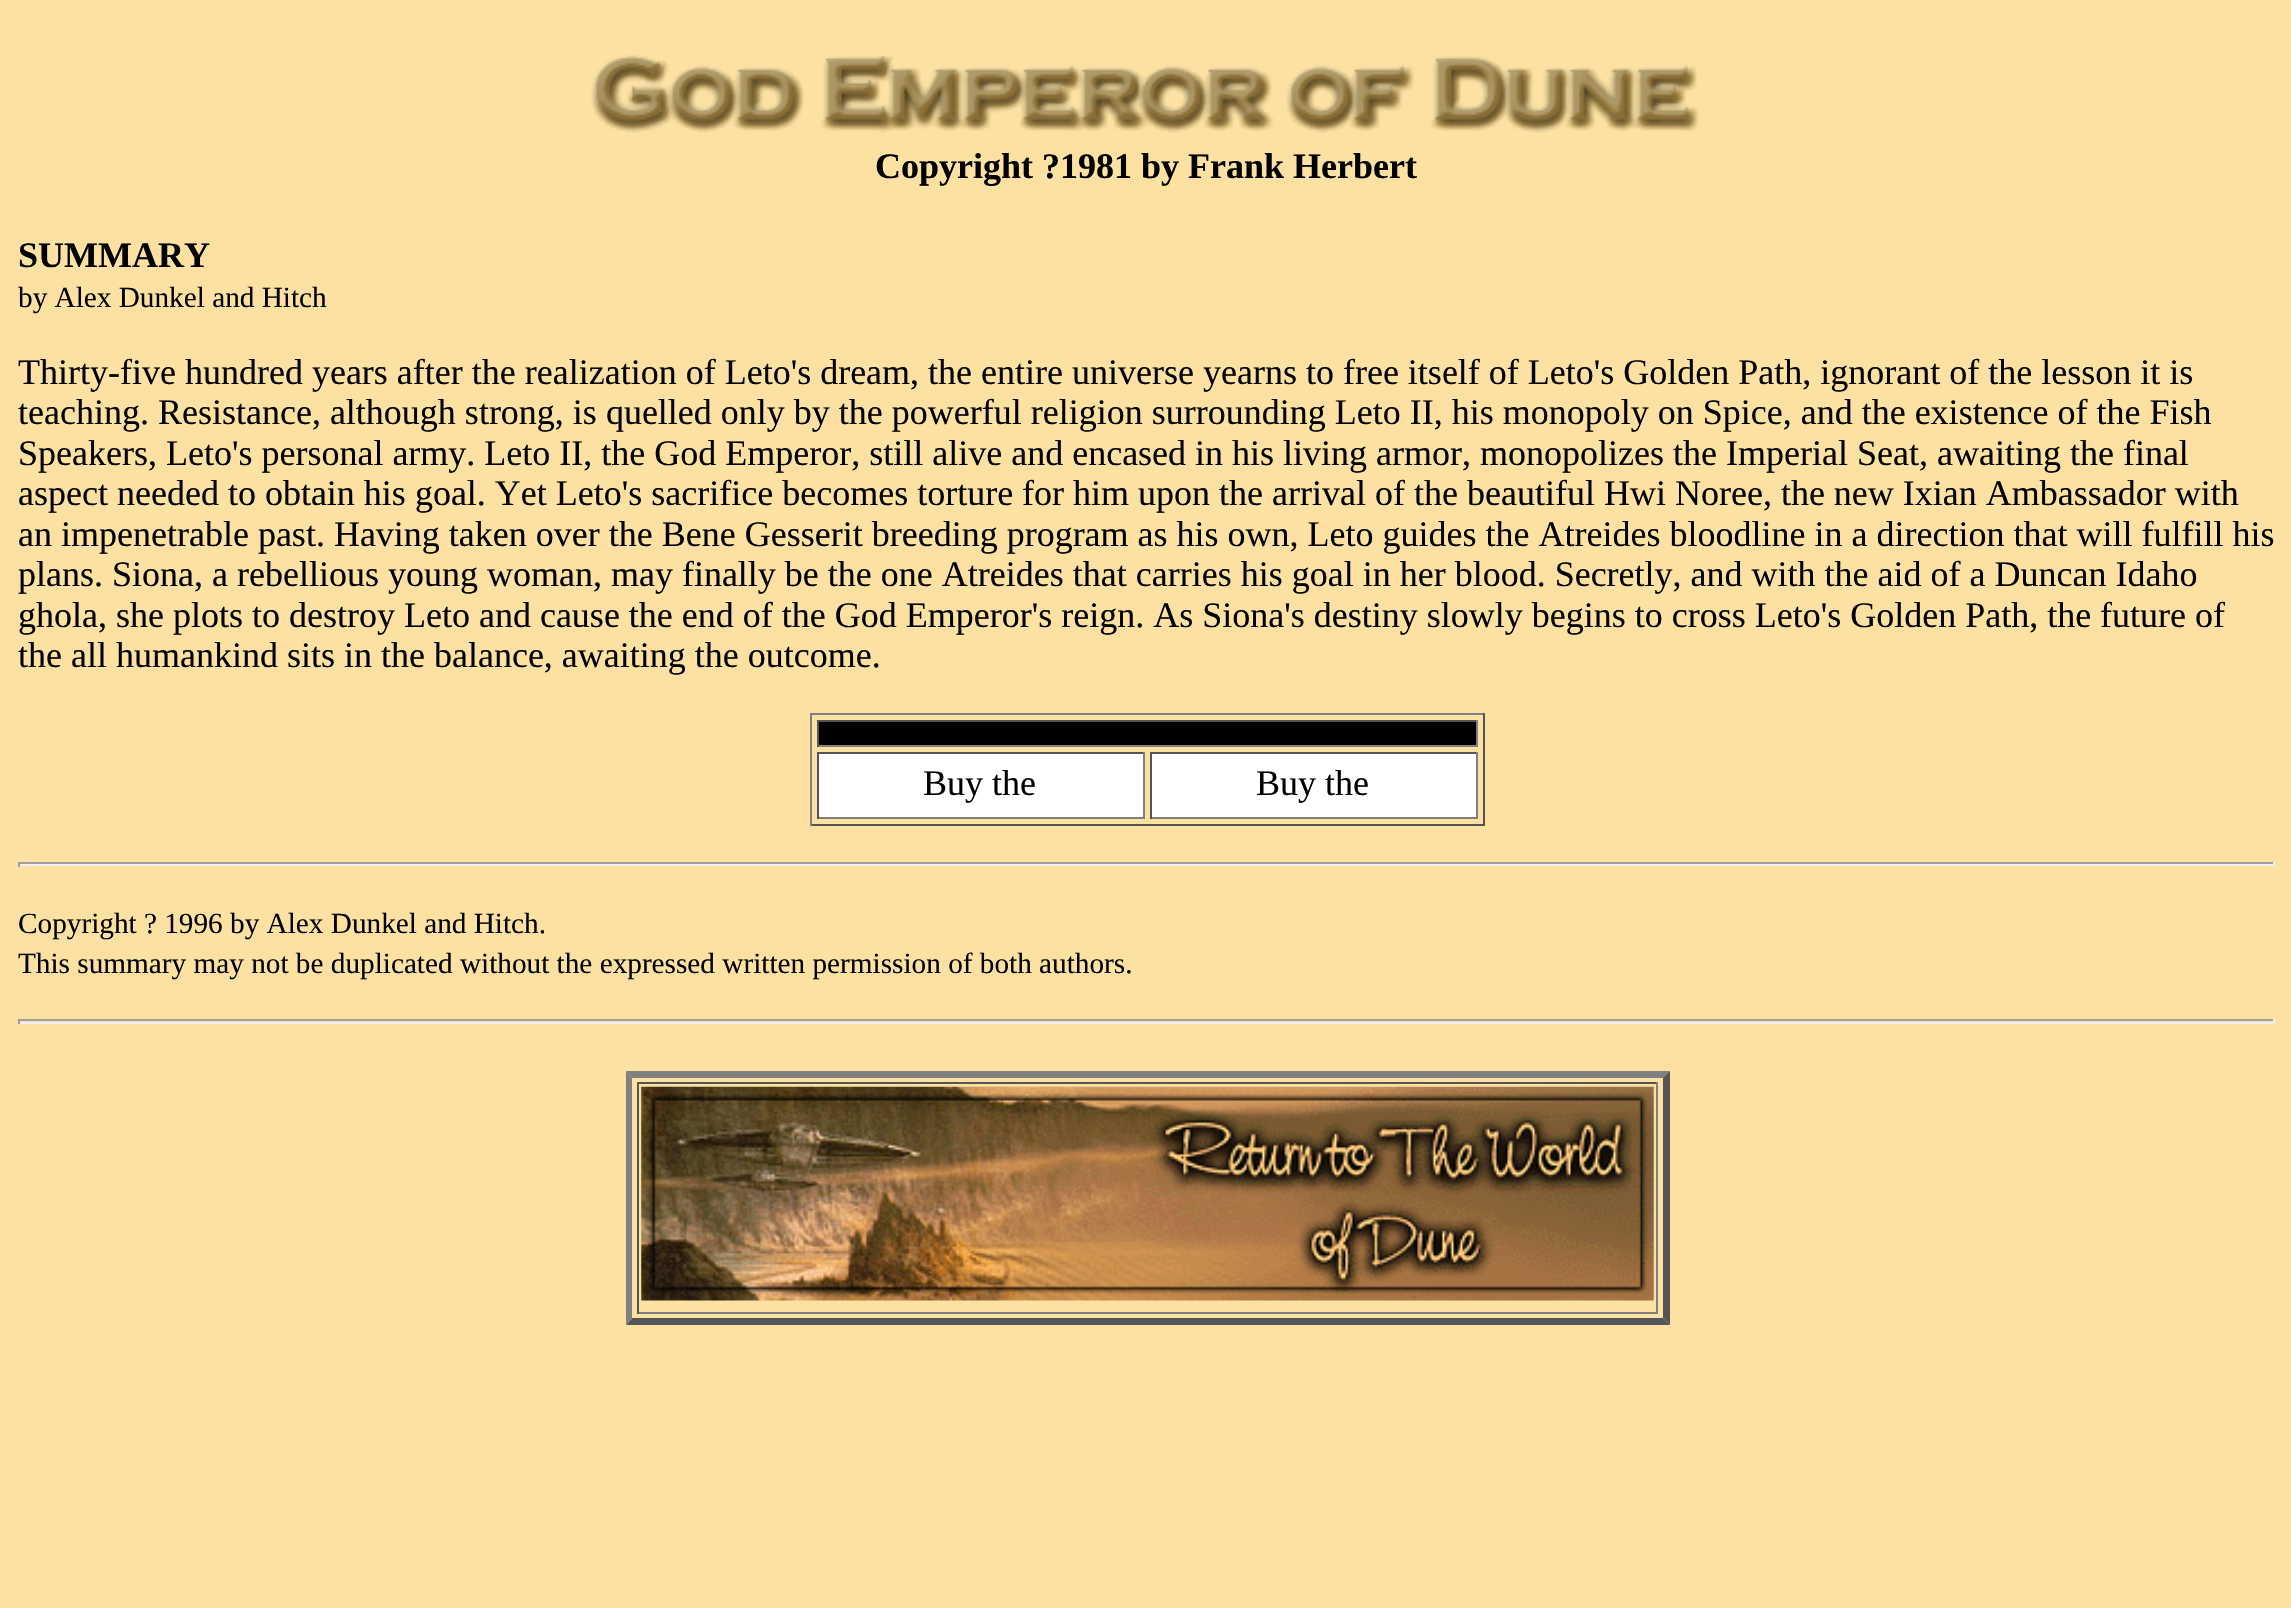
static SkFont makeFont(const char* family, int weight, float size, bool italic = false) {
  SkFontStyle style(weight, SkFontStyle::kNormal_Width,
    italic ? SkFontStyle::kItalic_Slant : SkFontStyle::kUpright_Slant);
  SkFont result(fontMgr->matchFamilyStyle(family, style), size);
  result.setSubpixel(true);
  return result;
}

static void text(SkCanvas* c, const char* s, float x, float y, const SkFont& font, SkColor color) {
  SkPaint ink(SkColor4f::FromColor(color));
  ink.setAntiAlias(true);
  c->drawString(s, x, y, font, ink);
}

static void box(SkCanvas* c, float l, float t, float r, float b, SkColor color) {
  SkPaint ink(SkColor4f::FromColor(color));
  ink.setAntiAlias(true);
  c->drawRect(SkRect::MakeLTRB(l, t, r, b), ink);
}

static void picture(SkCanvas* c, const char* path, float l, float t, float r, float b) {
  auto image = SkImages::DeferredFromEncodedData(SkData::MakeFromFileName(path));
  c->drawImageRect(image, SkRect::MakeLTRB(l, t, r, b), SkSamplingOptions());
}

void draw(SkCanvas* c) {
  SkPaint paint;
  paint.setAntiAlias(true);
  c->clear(0xfffce1a2);
  picture(c, "img_01.png", 591, 54, 1699, 133);
  SkFont face1 = makeFont("Liberation Serif", 700, 36);
  text(c, "Copyright ?1981 by Frank Herbert", 875, 178, face1, 0xff000000);
  text(c, "SUMMARY", 18, 267, face1, 0xff000000);
  SkFont face2 = makeFont("Liberation Serif", 400, 29.25f);
  text(c, "by Alex Dunkel and Hitch", 18, 307, face2, 0xff000000);
  SkFont face3 = makeFont("Liberation Serif", 400, 36);
  text(c, "Thirty-five hundred years after the realization of Leto's dream, the entire universe yearns to free itself of Leto's Golden Path, ignorant of the lesson it is", 18, 384, face3, 0xff000000);
  text(c, "teaching. Resistance, although strong, is quelled only by the powerful religion surrounding Leto II, his monopoly on Spice, and the existence of the Fish", 18, 424, face3, 0xff000000);
  text(c, "Speakers, Leto's personal army. Leto II, the God Emperor, still alive and encased in his living armor, monopolizes the Imperial Seat, awaiting the final", 18, 465, face3, 0xff000000);
  text(c, "aspect needed to obtain his goal. Yet Leto's sacrifice becomes torture for him upon the arrival of the beautiful Hwi Noree, the new Ixian Ambassador with", 18, 505, face3, 0xff000000);
  text(c, "an impenetrable past. Having taken over the Bene Gesserit breeding program as his own, Leto guides the Atreides bloodline in a direction that will fulfill his", 18, 546, face3, 0xff000000);
  text(c, "plans. Siona, a rebellious young woman, may finally be the one Atreides that carries his goal in her blood. Secretly, and with the aid of a Duncan Idaho", 18, 586, face3, 0xff000000);
  text(c, "ghola, she plots to destroy Leto and cause the end of the God Emperor's reign. As Siona's destiny slowly begins to cross Leto's Golden Path, the future of", 18, 627, face3, 0xff000000);
  text(c, "the all humankind sits in the balance, awaiting the outcome.", 18, 667, face3, 0xff000000);
  box(c, 810, 713, 1485, 715, 0xff808080);
  box(c, 1483, 713, 1485, 826, 0xff555555);
  box(c, 810, 824, 1485, 826, 0xff555555);
  box(c, 810, 713, 812, 826, 0xff808080);
  box(c, 819, 722, 1476, 745, 0xff000000);
  box(c, 817, 720, 1478, 722, 0xff555555);
  box(c, 1476, 720, 1478, 747, 0xff808080);
  box(c, 817, 745, 1478, 747, 0xff808080);
  box(c, 817, 720, 819, 747, 0xff555555);
  box(c, 819, 754, 1143, 817, 0xffffffff);
  box(c, 817, 752, 1145, 754, 0xff555555);
  box(c, 1143, 752, 1145, 819, 0xff808080);
  box(c, 817, 817, 1145, 819, 0xff808080);
  box(c, 817, 752, 819, 819, 0xff555555);
  text(c, "Buy the", 923, 795, face3, 0xff000000);
  box(c, 1152, 754, 1476, 817, 0xffffffff);
  box(c, 1150, 752, 1478, 754, 0xff555555);
  box(c, 1476, 752, 1478, 819, 0xff808080);
  box(c, 1150, 817, 1478, 819, 0xff808080);
  box(c, 1150, 752, 1152, 819, 0xff555555);
  text(c, "Buy the", 1256, 795, face3, 0xff000000);
  box(c, 18, 862, 2275, 864, 0xff9f9f9f);
  box(c, 2273, 862, 2275, 867, 0xffeeeeee);
  box(c, 18, 864, 2275, 866, 0xffeeeeee);
  box(c, 18, 862, 20, 867, 0xff9f9f9f);
  text(c, "Copyright ? 1996 by Alex Dunkel and Hitch.", 18, 933, face2, 0xff000000);
  text(c, "This summary may not be duplicated without the expressed written permission of both authors.", 18, 973, face2, 0xff000000);
  box(c, 18, 1019, 2275, 1021, 0xff9f9f9f);
  box(c, 2273, 1019, 2275, 1024, 0xffeeeeee);
  box(c, 18, 1022, 2275, 1024, 0xffeeeeee);
  box(c, 18, 1019, 20, 1024, 0xff9f9f9f);
  paint.setColor(0xff808080);
  c->drawPath(SkPathBuilder().moveTo(626, 1071).lineTo(1670, 1071).lineTo(1663, 1078).lineTo(632, 1078).close().detach(), paint);
  paint.setColor(0xff555555);
  c->drawPath(SkPathBuilder().moveTo(1670, 1071).lineTo(1670, 1325).lineTo(1663, 1318).lineTo(1663, 1078).close().detach(), paint);
  c->drawPath(SkPathBuilder().moveTo(1670, 1325).lineTo(626, 1325).lineTo(632, 1318).lineTo(1663, 1318).close().detach(), paint);
  paint.setColor(0xff808080);
  c->drawPath(SkPathBuilder().moveTo(626, 1325).lineTo(626, 1071).lineTo(632, 1078).lineTo(632, 1318).close().detach(), paint);
  box(c, 637, 1082, 1658, 1084, 0xff555555);
  box(c, 1656, 1082, 1658, 1314, 0xff808080);
  box(c, 637, 1312, 1658, 1314, 0xff808080);
  box(c, 637, 1082, 639, 1314, 0xff555555);
  picture(c, "img_02.png", 641, 1086, 1654, 1301);
}
